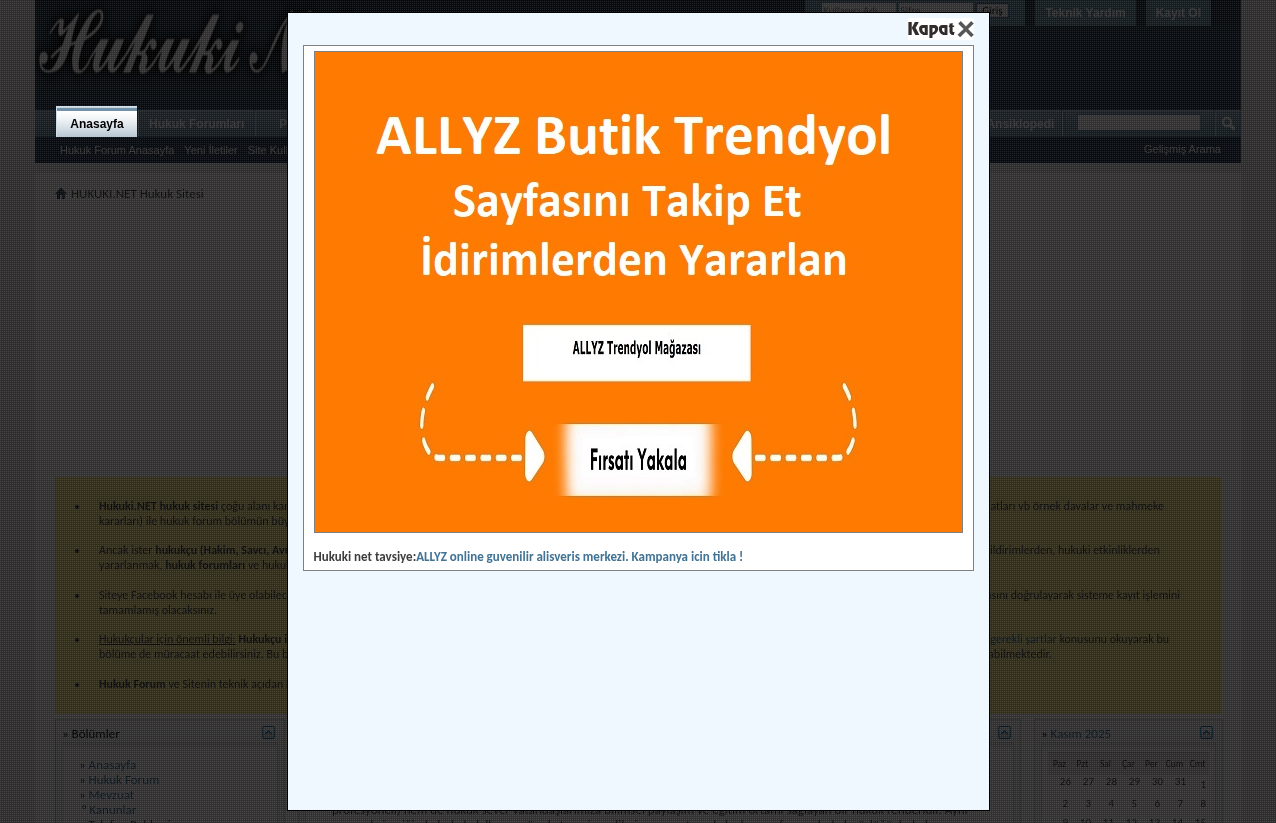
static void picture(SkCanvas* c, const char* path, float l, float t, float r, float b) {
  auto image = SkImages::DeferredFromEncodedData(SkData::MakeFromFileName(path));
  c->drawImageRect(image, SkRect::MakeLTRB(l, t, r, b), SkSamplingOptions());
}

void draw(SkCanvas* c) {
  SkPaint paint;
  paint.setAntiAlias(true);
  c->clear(0xffffffff);
  picture(c, "img_01.png", 0, 0, 1276, 823);
}
